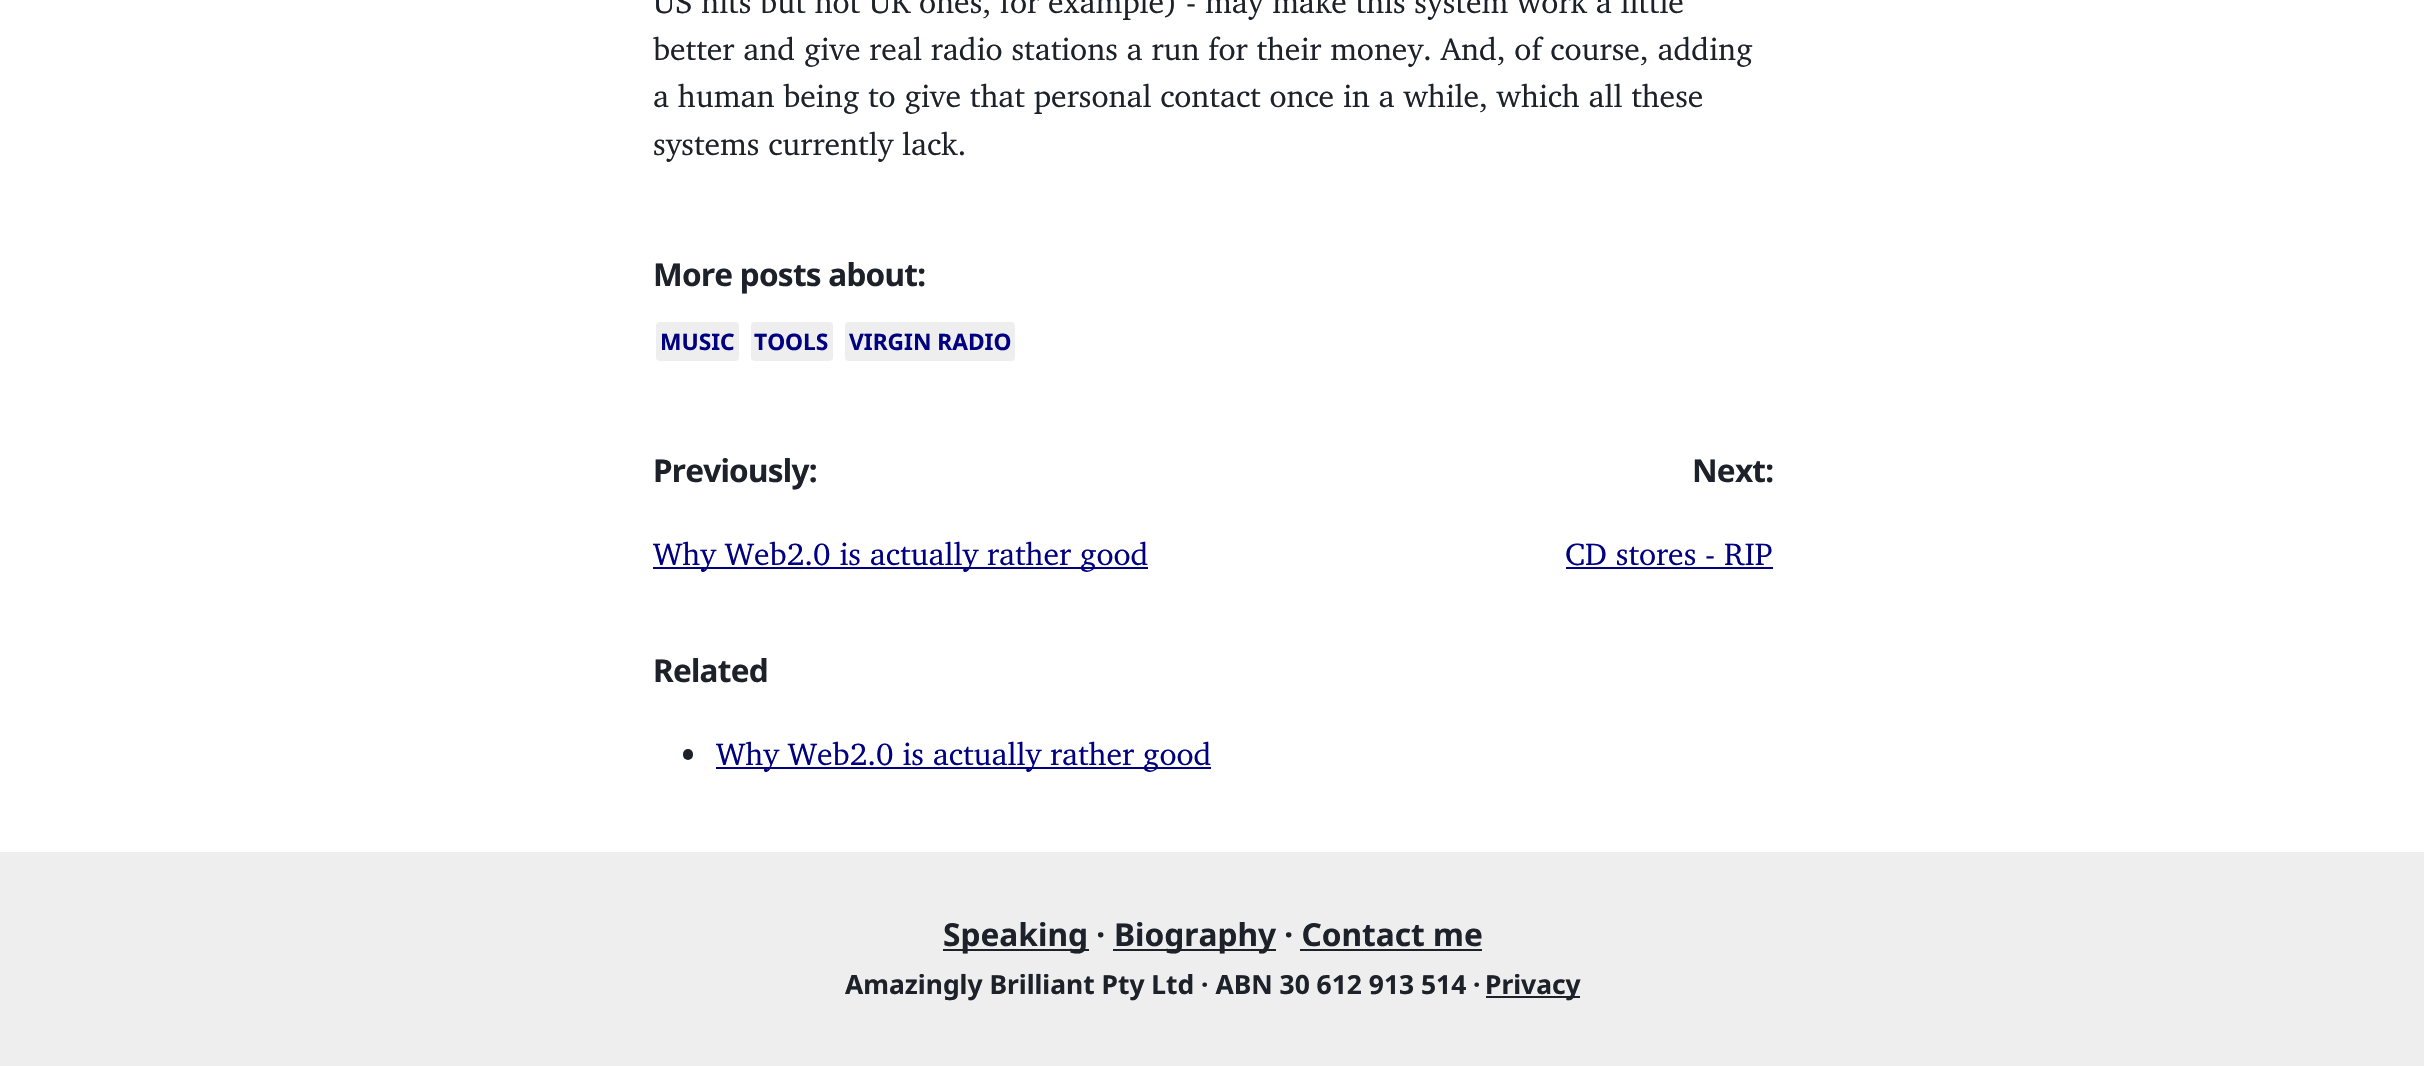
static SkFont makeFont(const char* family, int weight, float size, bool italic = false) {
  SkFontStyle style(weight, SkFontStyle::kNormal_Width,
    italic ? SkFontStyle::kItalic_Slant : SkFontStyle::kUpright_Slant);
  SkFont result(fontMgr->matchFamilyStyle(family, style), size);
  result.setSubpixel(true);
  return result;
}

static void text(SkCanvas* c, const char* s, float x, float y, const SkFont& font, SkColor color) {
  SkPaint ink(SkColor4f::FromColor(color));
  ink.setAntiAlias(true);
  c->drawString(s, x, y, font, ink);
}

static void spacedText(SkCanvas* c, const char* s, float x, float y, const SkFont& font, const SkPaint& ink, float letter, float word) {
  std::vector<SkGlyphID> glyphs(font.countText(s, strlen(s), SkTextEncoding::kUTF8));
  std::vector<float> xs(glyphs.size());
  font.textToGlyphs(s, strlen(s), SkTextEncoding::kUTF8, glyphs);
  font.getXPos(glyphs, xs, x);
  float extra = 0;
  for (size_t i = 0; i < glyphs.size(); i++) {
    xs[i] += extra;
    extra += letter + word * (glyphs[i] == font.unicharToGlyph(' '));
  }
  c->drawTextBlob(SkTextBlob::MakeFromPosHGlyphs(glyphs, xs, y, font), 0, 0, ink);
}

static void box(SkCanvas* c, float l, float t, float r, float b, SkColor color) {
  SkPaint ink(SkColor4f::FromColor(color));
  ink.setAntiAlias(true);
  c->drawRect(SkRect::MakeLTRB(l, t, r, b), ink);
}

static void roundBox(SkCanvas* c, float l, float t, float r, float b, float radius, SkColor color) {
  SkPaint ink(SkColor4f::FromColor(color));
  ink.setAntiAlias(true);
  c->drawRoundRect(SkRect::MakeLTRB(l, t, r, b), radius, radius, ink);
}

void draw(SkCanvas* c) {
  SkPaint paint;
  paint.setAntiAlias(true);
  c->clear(0xffffffff);
  SkFont face1 = makeFont("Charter", 400, 31.65f);
  text(c, "US hits but not UK ones, for example) - may make this system work a little", 653, 13, face1, 0xff1d2129);
  text(c, "better and give real radio stations a run for their money. And, of course, adding", 653, 60, face1, 0xff1d2129);
  text(c, "a human being to give that personal contact once in a while, which all these", 653, 107, face1, 0xff1d2129);
  text(c, "systems currently lack.", 653, 155, face1, 0xff1d2129);
  SkFont face2 = makeFont("Noto Sans", 700, 31.5f);
  paint.setColor(0xff1d2129);
  spacedText(c, "More posts about:", 653, 286, face2, paint, -0.75f, 0);
  roundBox(c, 656, 322, 739, 361, 4, 0xffeeeeee);
  SkFont face3 = makeFont("Noto Sans", 700, 22.75f);
  text(c, "MUSIC", 660, 350, face3, 0xff000080);
  roundBox(c, 751, 322, 833, 361, 4, 0xffeeeeee);
  text(c, "TOOLS", 754, 350, face3, 0xff000080);
  roundBox(c, 845, 322, 1015, 361, 4, 0xffeeeeee);
  text(c, "VIRGIN RADIO", 849, 350, face3, 0xff000080);
  spacedText(c, "Previously:", 653, 482, face2, paint, -0.75f, 0);
  box(c, 653, 567, 1148, 569, 0xff000080);
  text(c, "Why Web2.0 is actually rather good", 653, 565, face1, 0xff000080);
  spacedText(c, "Next:", 1692, 482, face2, paint, -0.75f, 0);
  text(c, "CD stores - RIP", 1565, 565, face1, 0xff000080);
  box(c, 1566, 567, 1773, 569, 0xff000080);
  spacedText(c, "Related", 653, 682, face2, paint, -0.75f, 0);
  roundBox(c, 683, 749, 693, 760, 5, 0xff1d2129);
  box(c, 716, 767, 1211, 769, 0xff000080);
  text(c, "Why Web2.0 is actually rather good", 716, 765, face1, 0xff000080);
  box(c, 0, 852, 2424, 1066, 0xffeeeeee);
  box(c, 943, 949, 1089, 951, 0xff1d2129);
  SkFont face4 = makeFont("Noto Sans", 700, 31.65f);
  text(c, "Speaking ·", 943, 946, face4, 0xff1d2129);
  box(c, 1113, 949, 1276, 951, 0xff1d2129);
  text(c, "Biography · Contact me", 1114, 946, face4, 0xff1d2129);
  box(c, 1300, 949, 1482, 951, 0xff1d2129);
  SkFont face5 = makeFont("Noto Sans", 700, 26.4f);
  text(c, "Amazingly Brilliant Pty Ltd · ABN 30 612 913 514 ·", 845, 994, face5, 0xff1d2129);
  box(c, 1486, 996, 1580, 998, 0xff1d2129);
  text(c, "Privacy", 1485, 994, face5, 0xff1d2129);
}
